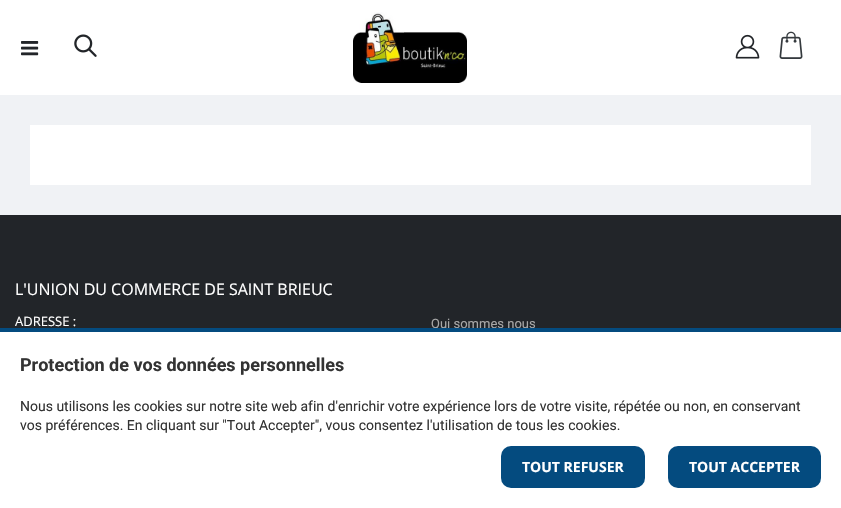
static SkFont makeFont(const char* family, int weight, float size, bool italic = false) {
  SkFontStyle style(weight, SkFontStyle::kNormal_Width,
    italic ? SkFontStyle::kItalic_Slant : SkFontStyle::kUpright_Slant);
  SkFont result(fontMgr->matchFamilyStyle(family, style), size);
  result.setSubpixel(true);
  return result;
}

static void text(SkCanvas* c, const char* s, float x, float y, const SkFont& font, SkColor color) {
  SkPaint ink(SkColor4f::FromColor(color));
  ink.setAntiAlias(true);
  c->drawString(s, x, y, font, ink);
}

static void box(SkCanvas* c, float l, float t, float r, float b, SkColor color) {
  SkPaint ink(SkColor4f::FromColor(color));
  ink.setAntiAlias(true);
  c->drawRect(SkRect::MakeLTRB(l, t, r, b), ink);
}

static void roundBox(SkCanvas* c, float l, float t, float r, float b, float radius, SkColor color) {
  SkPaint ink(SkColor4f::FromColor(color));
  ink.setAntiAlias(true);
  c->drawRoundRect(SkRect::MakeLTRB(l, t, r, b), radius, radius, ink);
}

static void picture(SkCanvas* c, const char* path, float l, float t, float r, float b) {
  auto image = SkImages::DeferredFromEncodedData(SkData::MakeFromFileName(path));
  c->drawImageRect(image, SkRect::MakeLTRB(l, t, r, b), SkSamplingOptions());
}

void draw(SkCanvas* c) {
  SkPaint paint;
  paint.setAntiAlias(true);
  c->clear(0xffffffff);
  box(c, 0, 95, 841, 215, 0xfff0f2f5);
  box(c, 30, 125, 811, 185, 0xffffffff);
  box(c, 0, 215, 841, 328, 0xff222529);
  SkFont face1 = makeFont("Open Sans", 400, 16);
  text(c, "L'UNION DU COMMERCE DE SAINT BRIEUC", 15, 295, face1, 0xffffffff);
  SkFont face2 = makeFont("Open Sans", 400, 13);
  text(c, "ADRESSE :", 15, 326, face2, 0xffffffff);
  SkFont face3 = makeFont("Roboto", 400, 13);
  text(c, "Qui sommes nous", 431, 328, face3, 0xffa8a8a8);
  picture(c, "img_01.png", 21, 41, 39, 56);
  picture(c, "img_02.png", 74, 34, 97, 57);
  picture(c, "img_03.png", 353, 12, 467, 83);
  picture(c, "img_04.png", 735, 34, 760, 59);
  picture(c, "img_05.png", 779, 31, 803, 59);
  box(c, 0, 328, 841, 332, 0xff044b7f);
  SkFont face4 = makeFont("Roboto", 700, 18);
  text(c, "Protection de vos données personnelles", 20, 371, face4, 0xff333333);
  SkFont face5 = makeFont("Roboto", 400, 14);
  text(c, "Nous utilisons les cookies sur notre site web afin d'enrichir votre expérience lors de votre visite, répétée ou non, en conservant", 20, 411, face5, 0xff333333);
  text(c, "vos préférences. En cliquant sur \"Tout Accepter\", vous consentez l'utilisation de tous les cookies.", 20, 430, face5, 0xff333333);
  roundBox(c, 501, 446, 645, 488, 10, 0xff044b7f);
  SkFont face6 = makeFont("Open Sans", 700, 14);
  text(c, "TOUT REFUSER", 522, 472, face6, 0xffffffff);
  roundBox(c, 668, 446, 821, 488, 10, 0xff044b7f);
  text(c, "TOUT ACCEPTER", 689, 472, face6, 0xffffffff);
}
